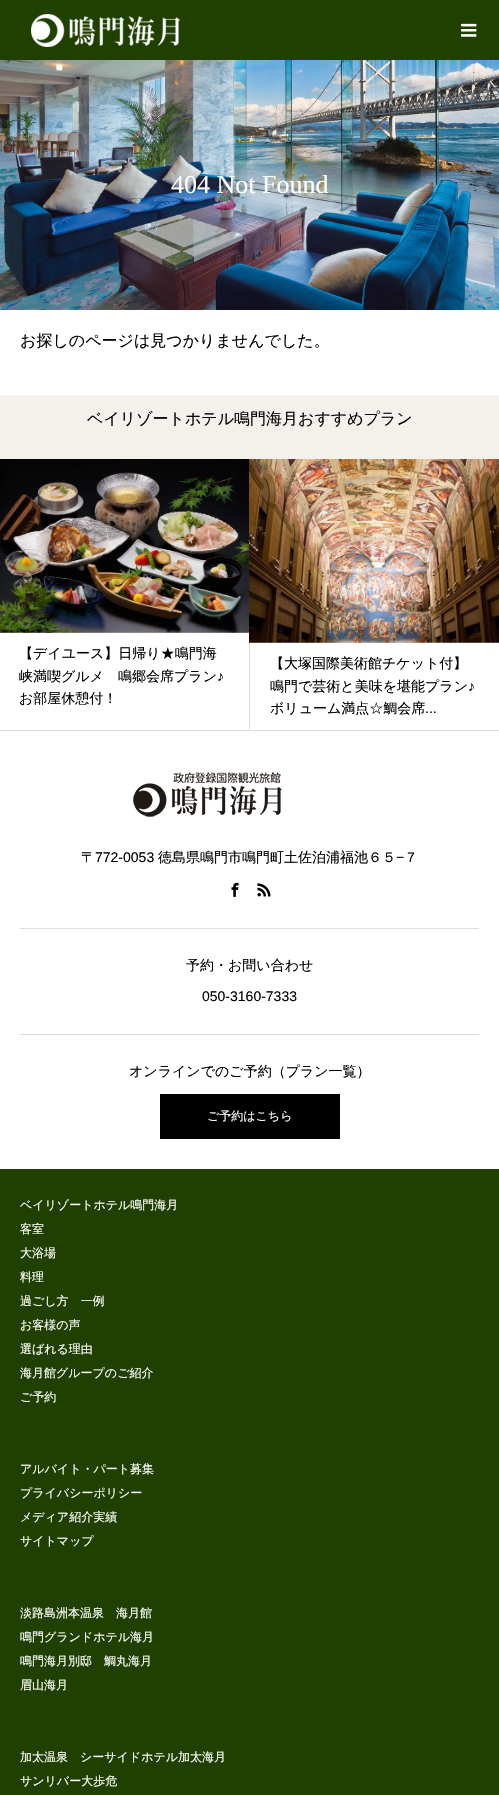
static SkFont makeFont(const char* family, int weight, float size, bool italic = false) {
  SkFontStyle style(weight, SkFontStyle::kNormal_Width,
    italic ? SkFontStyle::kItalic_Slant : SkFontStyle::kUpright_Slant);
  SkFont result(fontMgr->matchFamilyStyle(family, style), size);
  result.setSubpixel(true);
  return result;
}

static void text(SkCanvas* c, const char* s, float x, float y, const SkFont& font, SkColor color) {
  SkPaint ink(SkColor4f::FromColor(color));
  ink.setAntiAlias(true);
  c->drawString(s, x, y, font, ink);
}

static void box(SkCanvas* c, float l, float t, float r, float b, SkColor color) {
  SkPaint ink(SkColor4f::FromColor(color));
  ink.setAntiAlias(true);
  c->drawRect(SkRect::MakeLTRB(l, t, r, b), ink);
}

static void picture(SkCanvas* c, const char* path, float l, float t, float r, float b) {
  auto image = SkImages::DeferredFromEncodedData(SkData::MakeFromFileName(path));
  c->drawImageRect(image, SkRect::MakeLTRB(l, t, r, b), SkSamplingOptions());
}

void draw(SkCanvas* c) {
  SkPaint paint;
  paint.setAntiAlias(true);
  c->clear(0xffffffff);
  box(c, 0, 0, 499, 60, 0xff204000);
  picture(c, "img_01.png", 31, 14, 180, 47);
  picture(c, "img_02.png", 461, 23, 477, 37);
  picture(c, "img_03.png", 0, 60, 499, 310);
  SkFont face1 = makeFont("Liberation Serif", 400, 26);
  text(c, "404 Not Found", 171, 193, face1, 0xffffffff);
  SkFont face2 = makeFont("WenQuanYi Zen Hei", 500, 16);
  text(c, "お探しのページは見つかりませんでした。", 20, 346, face2, 0xff000000);
  box(c, 0, 395, 499, 459, 0xfff4f1ed);
  text(c, "ベイリゾートホテル鳴門海月おすすめプラン", 87, 424, face2, 0xff000000);
  box(c, 0, 730, 499, 731, 0xffdddddd);
  box(c, 249, 642, 250, 730, 0xffdddddd);
  picture(c, "img_04.png", 0, 459, 249, 633);
  SkFont face3 = makeFont("WenQuanYi Zen Hei", 500, 14);
  text(c, "【デイユース】日帰り★鳴門海", 19, 658, face3, 0xff000000);
  text(c, "峡満喫グルメ　鳴郷会席プラン", 19, 681, face3, 0xff000000);
  SkFont face4 = makeFont("Liberation Sans", 400, 14);
  text(c, "♪", 217, 681, face4, 0xff000000);
  text(c, "お部屋休憩付！", 19, 703, face3, 0xff000000);
  picture(c, "img_05.png", 249, 459, 499, 643);
  text(c, "【大塚国際美術館チケット付】", 270, 668, face3, 0xff000000);
  text(c, "鳴門で芸術と美味を堪能プラン", 270, 691, face3, 0xff000000);
  text(c, "♪", 468, 691, face4, 0xff000000);
  text(c, "ボリューム満点☆鯛会席", 270, 713, face3, 0xff000000);
  text(c, "...", 425, 713, face4, 0xff000000);
  picture(c, "img_06.png", 133, 772, 282, 817);
  text(c, "〒", 81, 862, face3, 0xff000000);
  text(c, "772-0053", 95, 862, face4, 0xff000000);
  text(c, "徳島県鳴門市鳴門町土佐泊浦福池６５", 158, 862, face3, 0xff000000);
  text(c, "−", 396, 862, face4, 0xff000000);
  text(c, "７", 404, 862, face3, 0xff000000);
  picture(c, "img_07.png", 231, 882, 239, 897);
  picture(c, "img_08.png", 257, 883, 271, 897);
  box(c, 20, 928, 479, 929, 0xffdddddd);
  text(c, "予約・お問い合わせ", 186, 970, face3, 0xff000000);
  text(c, "050-3160-7333", 202, 1001, face4, 0xff000000);
  box(c, 20, 1034, 479, 1035, 0xffdddddd);
  text(c, "オンラインでのご予約（プラン一覧）", 129, 1076, face3, 0xff000000);
  box(c, 160, 1094, 340, 1139, 0xff000000);
  SkFont face5 = makeFont("WenQuanYi Zen Hei", 500, 12);
  text(c, "ご予約はこちら", 207, 1120, face5, 0xffffffff);
  box(c, 0, 1169, 499, 1795, 0xff204000);
  text(c, "ベイリゾートホテル鳴門海月", 20, 1209, face5, 0xffffffff);
  text(c, "客室", 20, 1233, face5, 0xffffffff);
  text(c, "大浴場", 20, 1257, face5, 0xffffffff);
  text(c, "料理", 20, 1281, face5, 0xffffffff);
  text(c, "過ごし方　一例", 20, 1305, face5, 0xffffffff);
  text(c, "お客様の声", 20, 1329, face5, 0xffffffff);
  text(c, "選ばれる理由", 20, 1353, face5, 0xffffffff);
  text(c, "海月館グループのご紹介", 20, 1377, face5, 0xffffffff);
  text(c, "ご予約", 20, 1401, face5, 0xffffffff);
  text(c, "アルバイト・パート募集", 20, 1473, face5, 0xffffffff);
  text(c, "プライバシーポリシー", 20, 1497, face5, 0xffffffff);
  text(c, "メディア紹介実績", 20, 1521, face5, 0xffffffff);
  text(c, "サイトマップ", 20, 1545, face5, 0xffffffff);
  text(c, "淡路島洲本温泉　海月館", 20, 1617, face5, 0xffffffff);
  text(c, "鳴門グランドホテル海月", 20, 1641, face5, 0xffffffff);
  text(c, "鳴門海月別邸　鯛丸海月", 20, 1665, face5, 0xffffffff);
  text(c, "眉山海月", 20, 1689, face5, 0xffffffff);
  text(c, "加太温泉　シーサイドホテル加太海月", 20, 1761, face5, 0xffffffff);
  text(c, "サンリバー大歩危", 20, 1785, face5, 0xffffffff);
}
